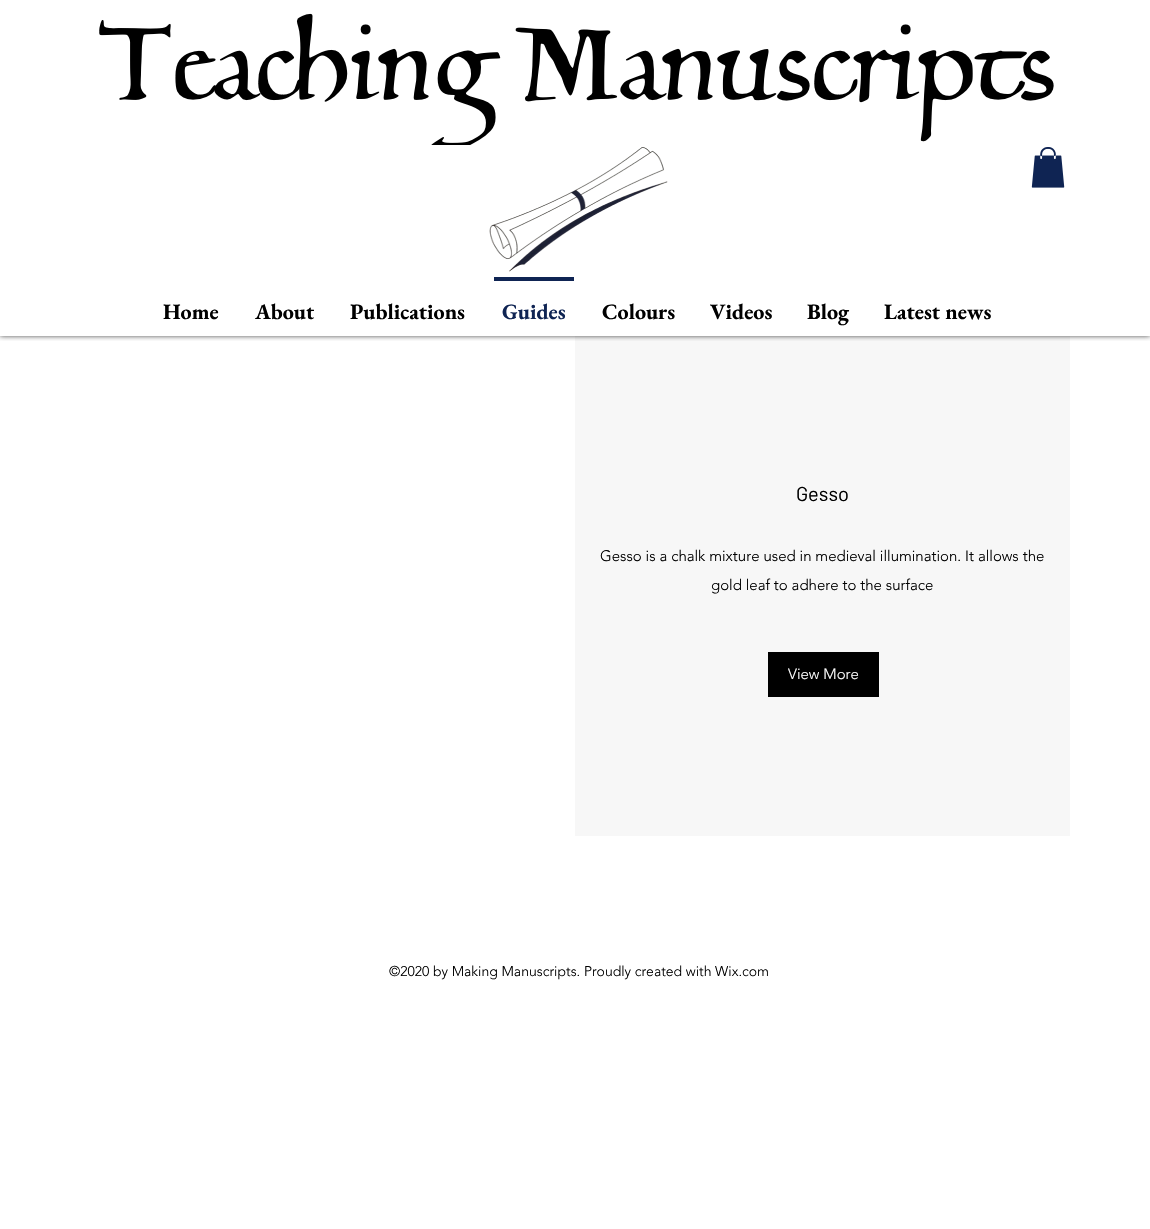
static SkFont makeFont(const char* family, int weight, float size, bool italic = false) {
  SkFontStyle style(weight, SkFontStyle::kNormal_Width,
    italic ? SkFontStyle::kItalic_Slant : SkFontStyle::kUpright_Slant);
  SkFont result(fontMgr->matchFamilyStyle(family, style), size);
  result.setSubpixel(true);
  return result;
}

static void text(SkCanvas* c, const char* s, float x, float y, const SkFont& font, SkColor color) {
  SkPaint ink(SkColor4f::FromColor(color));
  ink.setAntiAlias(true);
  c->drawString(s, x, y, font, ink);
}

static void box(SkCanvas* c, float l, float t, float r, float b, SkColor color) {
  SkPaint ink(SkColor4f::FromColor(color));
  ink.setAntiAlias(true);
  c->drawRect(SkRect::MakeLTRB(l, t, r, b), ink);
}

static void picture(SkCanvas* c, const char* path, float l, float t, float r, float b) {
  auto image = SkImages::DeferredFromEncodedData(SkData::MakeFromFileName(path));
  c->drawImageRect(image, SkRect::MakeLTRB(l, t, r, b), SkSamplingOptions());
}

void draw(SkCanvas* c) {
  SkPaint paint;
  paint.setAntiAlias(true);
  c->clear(0xffffffff);
  box(c, 575, 336, 1070, 836, 0xfff7f7f7);
  c->save();
  c->clipRect(SkRect::MakeLTRB(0, 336, 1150, 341));
  paint.setColor(0xb3000000);
  paint.setMaskFilter(SkMaskFilter::MakeBlur(kNormal_SkBlurStyle, 2.5f));
  c->drawRect(SkRect::MakeLTRB(0, 0, 1150, 336), paint);
  paint.setMaskFilter(nullptr);
  c->restore();
  picture(c, "img_01.png", 99, 13, 1054, 272);
  picture(c, "img_02.png", 1031, 147, 1065, 188);
  SkFont face1 = makeFont("EB Garamond", 700, 22);
  text(c, "Home", 163, 319, face1, 0xff000000);
  text(c, "About", 255, 319, face1, 0xff000000);
  text(c, "Publications", 350, 319, face1, 0xff000000);
  box(c, 494, 277, 574, 281, 0xff0f2453);
  text(c, "Guides", 502, 319, face1, 0xff0f2453);
  text(c, "Colours", 602, 319, face1, 0xff000000);
  text(c, "Videos", 710, 319, face1, 0xff000000);
  text(c, "Blog", 807, 319, face1, 0xff000000);
  text(c, "Latest news", 884, 319, face1, 0xff000000);
  SkFont face2 = makeFont("Barlow", 400, 20);
  text(c, "Gesso", 796, 501, face2, 0xff000000);
  SkFont face3 = makeFont("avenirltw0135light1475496", 300, 15);
  text(c, "Gesso is a chalk mixture used in medieval illumination. It allows the", 600, 561, face3, 0xff000000);
  text(c, "gold leaf to adhere to the surface", 711, 590, face3, 0xff000000);
  box(c, 768, 652, 879, 697, 0xff000000);
  text(c, "View More", 788, 679, face3, 0xffffffff);
  SkFont face4 = makeFont("avenirltw0135light1475496", 300, 14);
  text(c, "©2020 by Making Manuscripts. Proudly created with Wix.com", 389, 976, face4, 0xff000000);
}
